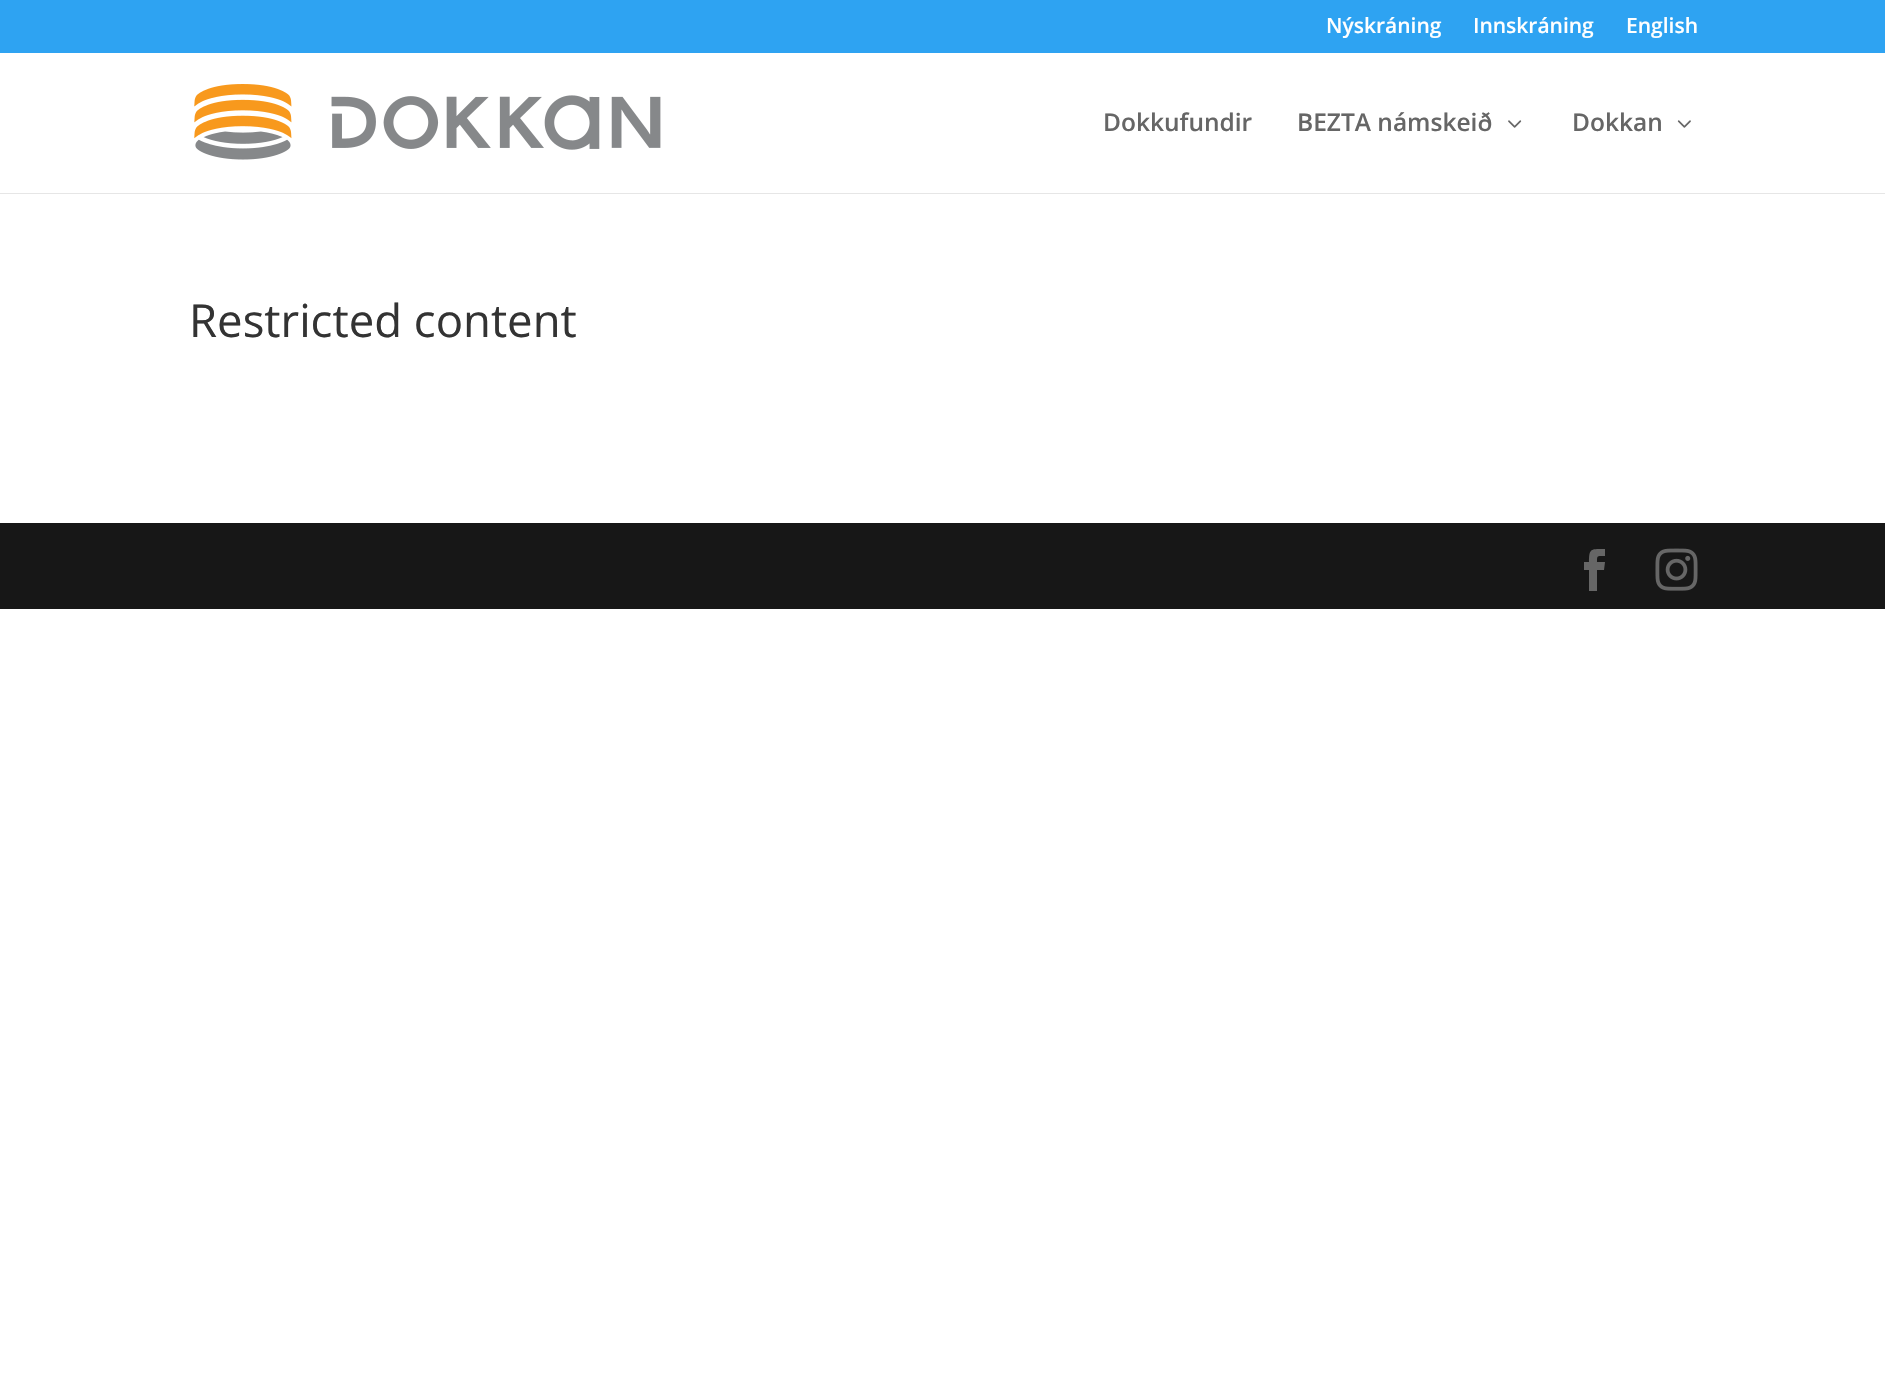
static SkFont makeFont(const char* family, int weight, float size, bool italic = false) {
  SkFontStyle style(weight, SkFontStyle::kNormal_Width,
    italic ? SkFontStyle::kItalic_Slant : SkFontStyle::kUpright_Slant);
  SkFont result(fontMgr->matchFamilyStyle(family, style), size);
  result.setSubpixel(true);
  return result;
}

static void text(SkCanvas* c, const char* s, float x, float y, const SkFont& font, SkColor color) {
  SkPaint ink(SkColor4f::FromColor(color));
  ink.setAntiAlias(true);
  c->drawString(s, x, y, font, ink);
}

static void box(SkCanvas* c, float l, float t, float r, float b, SkColor color) {
  SkPaint ink(SkColor4f::FromColor(color));
  ink.setAntiAlias(true);
  c->drawRect(SkRect::MakeLTRB(l, t, r, b), ink);
}

static void picture(SkCanvas* c, const char* path, float l, float t, float r, float b) {
  auto image = SkImages::DeferredFromEncodedData(SkData::MakeFromFileName(path));
  c->drawImageRect(image, SkRect::MakeLTRB(l, t, r, b), SkSamplingOptions());
}

void draw(SkCanvas* c) {
  SkPaint paint;
  paint.setAntiAlias(true);
  c->clear(0xffffffff);
  box(c, 0, 0, 1885, 53, 0xff2ea3f2);
  SkFont face1 = makeFont("Open Sans", 600, 21);
  text(c, "Nýskráning", 1326, 33, face1, 0xffffffff);
  text(c, "Innskráning", 1473, 33, face1, 0xffffffff);
  text(c, "English", 1626, 33, face1, 0xffffffff);
  paint.setColor(0xffe6e6e6);
  c->drawPath(SkPathBuilder().moveTo(0, 192).lineTo(0, 194).lineTo(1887, 194).lineTo(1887, 54).lineTo(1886, 54).lineTo(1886, 192).close().detach(), paint);
  box(c, 0, 192, 1885, 193, 0xffffffff);
  picture(c, "img_01.png", 194, 84, 661, 160);
  SkFont face2 = makeFont("Open Sans", 600, 24.5f);
  text(c, "Dokkufundir", 1103, 131, face2, 0xff666666);
  text(c, "BEZTA námskeið", 1297, 131, face2, 0xff666666);
  picture(c, "img_02.png", 1508, 120, 1522, 128);
  text(c, "Dokkan", 1572, 131, face2, 0xff666666);
  picture(c, "img_03.png", 1677, 120, 1691, 128);
  SkFont face3 = makeFont("Open Sans", 400, 45.5f);
  text(c, "Restricted content", 189, 337, face3, 0xff333333);
  box(c, 0, 523, 1885, 609, 0xff171717);
  paint.setColor(0xff666666);
  c->drawPath(SkPathBuilder().moveTo(1589, 591).lineTo(1597, 591).lineTo(1597, 570).lineTo(1604, 570).lineTo(1605, 562).lineTo(1597, 562).cubicTo(1597, 555, 1597, 556, 1605, 556).lineTo(1605, 549).cubicTo(1591, 549, 1589, 548, 1589, 562).lineTo(1584, 562).lineTo(1584, 570).lineTo(1589, 570).close().detach(), paint);
  picture(c, "img_04.png", 1655, 548, 1698, 591);
}
